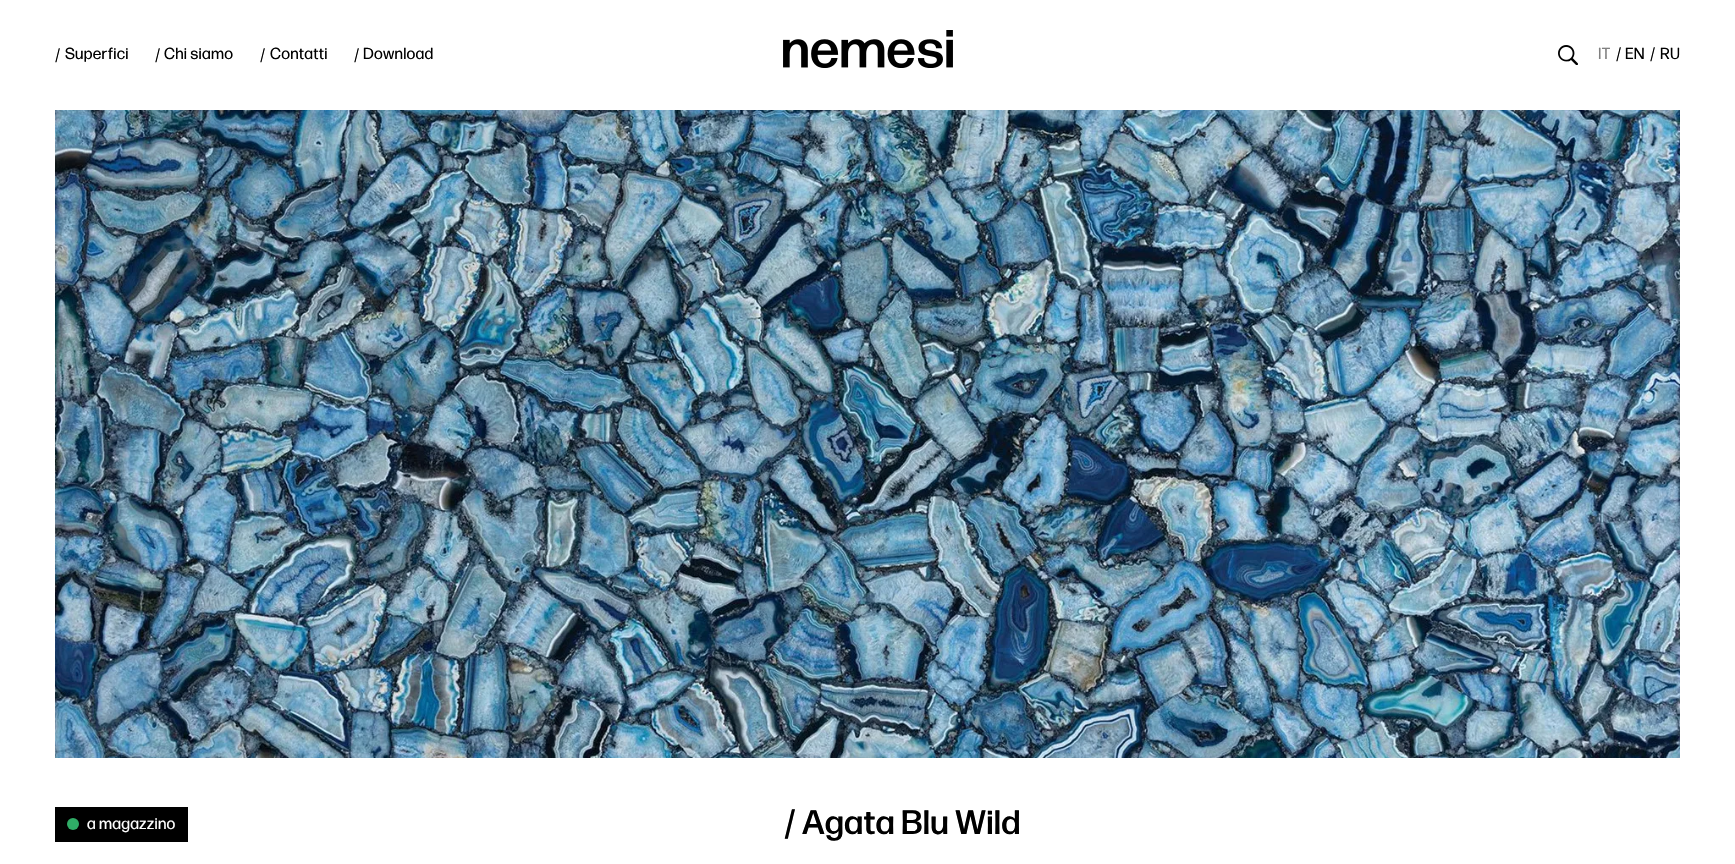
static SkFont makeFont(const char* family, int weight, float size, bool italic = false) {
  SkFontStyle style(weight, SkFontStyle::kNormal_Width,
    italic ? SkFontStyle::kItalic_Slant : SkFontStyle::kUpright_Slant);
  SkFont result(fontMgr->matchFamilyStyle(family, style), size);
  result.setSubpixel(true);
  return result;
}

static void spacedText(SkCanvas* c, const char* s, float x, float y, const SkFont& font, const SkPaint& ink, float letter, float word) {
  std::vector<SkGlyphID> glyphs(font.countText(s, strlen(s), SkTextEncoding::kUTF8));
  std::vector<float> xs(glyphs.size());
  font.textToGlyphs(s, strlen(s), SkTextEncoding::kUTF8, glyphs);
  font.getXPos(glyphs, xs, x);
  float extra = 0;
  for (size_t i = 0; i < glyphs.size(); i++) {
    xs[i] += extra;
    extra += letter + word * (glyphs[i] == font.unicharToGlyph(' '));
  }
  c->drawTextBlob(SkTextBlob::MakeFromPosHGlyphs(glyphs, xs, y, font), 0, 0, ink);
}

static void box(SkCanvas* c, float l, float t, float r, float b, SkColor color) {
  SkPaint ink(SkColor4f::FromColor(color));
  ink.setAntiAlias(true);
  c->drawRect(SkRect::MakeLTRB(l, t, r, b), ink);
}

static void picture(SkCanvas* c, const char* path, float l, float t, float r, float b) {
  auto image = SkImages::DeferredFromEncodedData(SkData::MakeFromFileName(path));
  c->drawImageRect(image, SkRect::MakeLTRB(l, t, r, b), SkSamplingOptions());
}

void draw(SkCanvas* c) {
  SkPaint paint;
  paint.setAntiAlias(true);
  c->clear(0xffffffff);
  SkFont face1 = makeFont("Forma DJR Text", 400, 16);
  paint.setColor(0xff000000);
  spacedText(c, "/", 55, 60, face1, paint, 0.25f, 0);
  spacedText(c, "Superfici", 65, 59, face1, paint, 0.25f, 0);
  spacedText(c, "/", 155, 60, face1, paint, 0.25f, 0);
  spacedText(c, "Chi siamo", 164, 59, face1, paint, 0.25f, 0);
  spacedText(c, "/", 260, 60, face1, paint, 0.25f, 0);
  spacedText(c, "Contatti", 270, 59, face1, paint, 0.25f, 0);
  spacedText(c, "/", 354, 60, face1, paint, 0.25f, 0);
  spacedText(c, "Download", 363, 59, face1, paint, 0.25f, 0);
  picture(c, "img_01.png", 783, 30, 953, 68);
  picture(c, "img_02.png", 1558, 45, 1578, 65);
  paint.setColor(0xff808080);
  spacedText(c, "IT", 1598, 59, face1, paint, 0.25f, 0);
  paint.setColor(0xff000000);
  spacedText(c, "/", 1616, 59, face1, paint, 0.25f, 0);
  spacedText(c, "EN", 1625, 59, face1, paint, 0.25f, 0);
  spacedText(c, "/", 1650, 59, face1, paint, 0.25f, 0);
  spacedText(c, "RU", 1660, 59, face1, paint, 0.25f, 0);
  picture(c, "img_03.png", 55, 110, 1680, 758);
  box(c, 55, 807, 188, 842, 0xff000000);
  paint.setColor(0xff2fac66);
  c->drawCircle(73, 824, 6, paint);
  paint.setColor(0xffffffff);
  spacedText(c, "a magazzino", 87, 829, face1, paint, 0.25f, 0);
  SkFont face2 = makeFont("Forma DJR Text", 500, 34);
  paint.setColor(0xff000000);
  spacedText(c, "/ Agata Blu Wild", 784, 834, face2, paint, 0.25f, 0);
}
